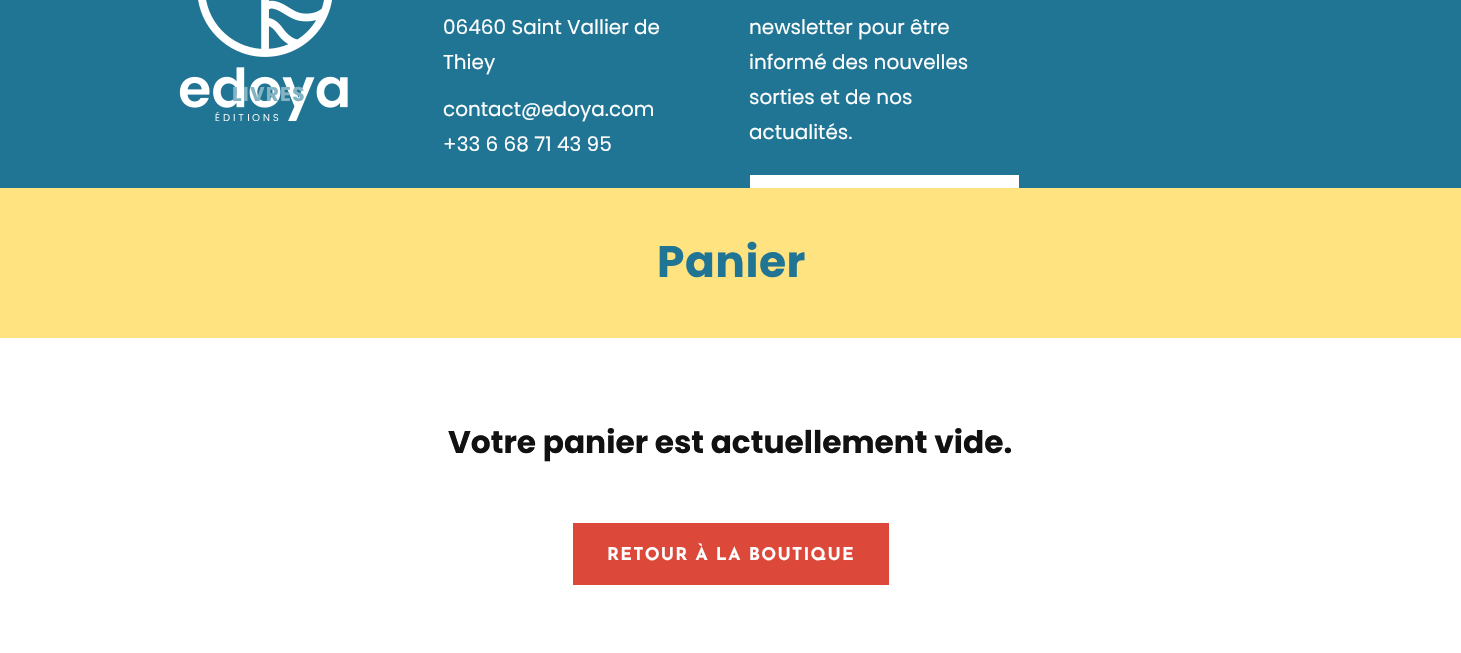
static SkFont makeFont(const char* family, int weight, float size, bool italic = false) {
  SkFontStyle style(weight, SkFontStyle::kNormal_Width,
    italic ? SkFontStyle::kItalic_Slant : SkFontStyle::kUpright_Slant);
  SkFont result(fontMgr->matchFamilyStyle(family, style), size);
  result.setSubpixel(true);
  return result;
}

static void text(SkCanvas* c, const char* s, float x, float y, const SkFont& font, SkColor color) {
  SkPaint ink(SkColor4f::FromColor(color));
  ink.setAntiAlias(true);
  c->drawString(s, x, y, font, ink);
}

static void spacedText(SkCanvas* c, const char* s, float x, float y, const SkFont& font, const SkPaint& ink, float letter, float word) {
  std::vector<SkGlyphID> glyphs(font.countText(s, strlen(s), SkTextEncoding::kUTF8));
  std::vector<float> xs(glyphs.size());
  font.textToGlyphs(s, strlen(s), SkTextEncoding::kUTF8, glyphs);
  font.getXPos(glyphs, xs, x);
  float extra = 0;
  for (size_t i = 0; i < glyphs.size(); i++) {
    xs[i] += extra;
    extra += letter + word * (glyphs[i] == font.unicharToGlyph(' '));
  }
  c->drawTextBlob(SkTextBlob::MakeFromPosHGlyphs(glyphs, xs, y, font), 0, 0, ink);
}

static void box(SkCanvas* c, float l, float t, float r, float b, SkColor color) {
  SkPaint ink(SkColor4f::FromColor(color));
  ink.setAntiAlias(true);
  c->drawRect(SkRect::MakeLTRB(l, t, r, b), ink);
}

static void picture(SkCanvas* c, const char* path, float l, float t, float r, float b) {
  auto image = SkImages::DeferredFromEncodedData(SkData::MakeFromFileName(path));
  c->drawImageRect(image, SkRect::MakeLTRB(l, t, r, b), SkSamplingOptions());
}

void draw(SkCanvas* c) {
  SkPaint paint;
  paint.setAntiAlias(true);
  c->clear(0xff217594);
  picture(c, "img_01.png", 179, 0, 348, 121);
  SkFont face1 = makeFont("Poppins", 700, 20);
  paint.setColor(0xff84b3c4);
  spacedText(c, "LIVRES", 232, 101, face1, paint, 1.25f, 0);
  SkFont face2 = makeFont("Poppins", 400, 20);
  text(c, "06460 Saint Vallier de", 443, 34, face2, 0xffffffff);
  text(c, "Thiey", 443, 69, face2, 0xffffffff);
  text(c, "contact@edoya.com", 443, 116, face2, 0xffffffff);
  text(c, "+33 6 68 71 43 95", 443, 151, face2, 0xffffffff);
  text(c, "newsletter pour être", 749, 34, face2, 0xffffffff);
  text(c, "informé des nouvelles", 749, 69, face2, 0xffffffff);
  text(c, "sorties et de nos", 749, 104, face2, 0xffffffff);
  text(c, "actualités.", 749, 139, face2, 0xffffffff);
  box(c, 750, 175, 1019, 188, 0xffffffff);
  box(c, 0, 338, 1461, 653, 0xffffffff);
  box(c, 0, 188, 1461, 338, 0xffffe381);
  SkFont face3 = makeFont("Poppins", 700, 44);
  paint.setColor(0xff217594);
  spacedText(c, "Panier", 657, 277, face3, paint, 0.5f, 0);
  SkFont face4 = makeFont("Poppins", 700, 31.25f);
  text(c, "Votre panier est actuellement vide.", 448, 453, face4, 0xff111111);
  box(c, 573, 523, 889, 585, 0xffdc493a);
  SkFont face5 = makeFont("Josefin Sans", 700, 17.5f);
  paint.setColor(0xffffffff);
  spacedText(c, "RETOUR À LA BOUTIQUE", 607, 560, face5, paint, 1.25f, 0);
}
